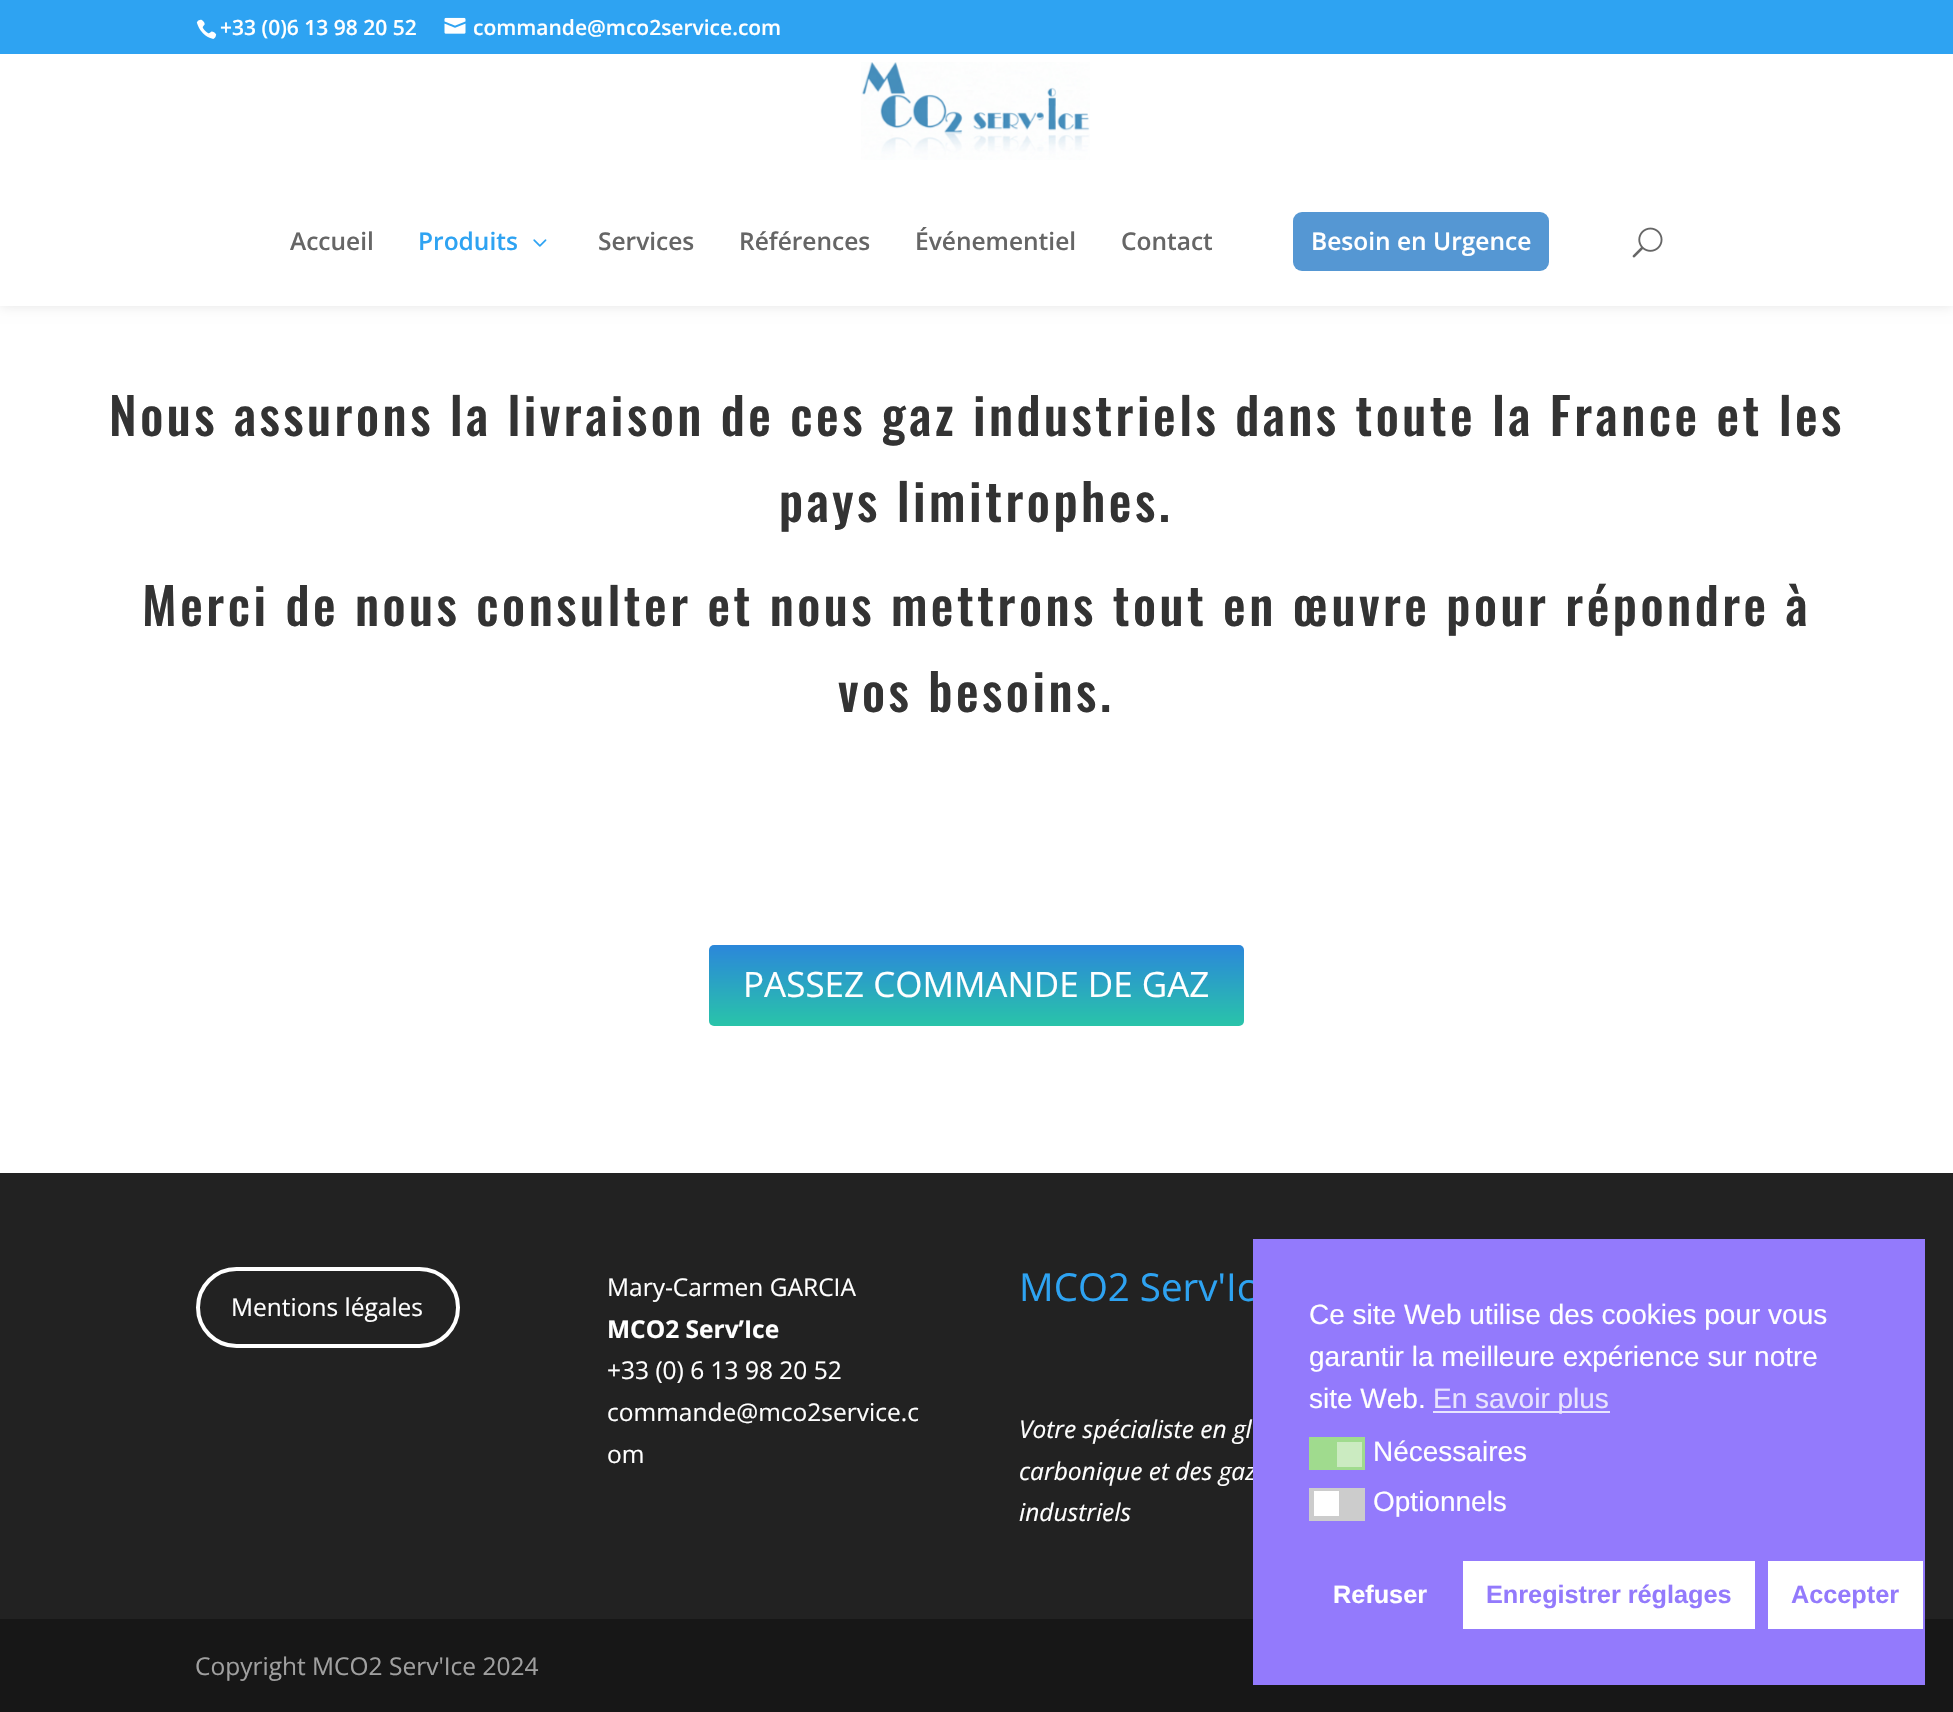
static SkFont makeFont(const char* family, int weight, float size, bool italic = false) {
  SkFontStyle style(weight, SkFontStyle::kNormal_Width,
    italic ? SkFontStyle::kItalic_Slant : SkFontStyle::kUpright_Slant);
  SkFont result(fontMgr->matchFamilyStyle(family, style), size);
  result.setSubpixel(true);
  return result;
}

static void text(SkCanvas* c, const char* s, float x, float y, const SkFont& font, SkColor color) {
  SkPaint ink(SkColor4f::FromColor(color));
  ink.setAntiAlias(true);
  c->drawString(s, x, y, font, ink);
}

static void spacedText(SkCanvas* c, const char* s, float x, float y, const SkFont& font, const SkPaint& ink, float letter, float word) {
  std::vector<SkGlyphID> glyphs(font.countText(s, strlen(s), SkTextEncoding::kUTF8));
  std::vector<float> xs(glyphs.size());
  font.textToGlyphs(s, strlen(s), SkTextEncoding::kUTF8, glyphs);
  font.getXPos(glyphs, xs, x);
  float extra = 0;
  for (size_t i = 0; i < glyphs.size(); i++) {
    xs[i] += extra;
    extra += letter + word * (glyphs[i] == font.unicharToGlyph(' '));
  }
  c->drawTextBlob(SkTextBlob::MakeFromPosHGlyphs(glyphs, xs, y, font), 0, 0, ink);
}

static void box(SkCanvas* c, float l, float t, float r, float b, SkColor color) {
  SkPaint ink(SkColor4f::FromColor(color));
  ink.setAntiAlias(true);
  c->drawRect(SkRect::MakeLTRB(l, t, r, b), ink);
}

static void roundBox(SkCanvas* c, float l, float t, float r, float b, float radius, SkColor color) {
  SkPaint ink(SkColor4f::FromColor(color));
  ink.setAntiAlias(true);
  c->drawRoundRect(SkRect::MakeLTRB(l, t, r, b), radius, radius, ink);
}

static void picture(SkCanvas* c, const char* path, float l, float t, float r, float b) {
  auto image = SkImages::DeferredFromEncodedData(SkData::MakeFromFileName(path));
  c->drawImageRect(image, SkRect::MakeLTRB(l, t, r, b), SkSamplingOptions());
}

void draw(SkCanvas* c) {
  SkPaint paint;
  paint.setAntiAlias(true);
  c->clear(0xffffffff);
  paint.setColor(0x1a000000);
  paint.setMaskFilter(SkMaskFilter::MakeBlur(kNormal_SkBlurStyle, 6));
  c->drawRect(SkRect::MakeLTRB(0, 54, 1953, 306), paint);
  paint.setMaskFilter(nullptr);
  box(c, 0, 0, 1953, 54, 0xff2ea3f2);
  picture(c, "img_01.png", 196, 19, 217, 39);
  SkFont face1 = makeFont("Open Sans", 600, 21);
  text(c, "+33 (0)6 13 98 20 52", 220, 35, face1, 0xffffffff);
  picture(c, "img_02.png", 444, 17, 466, 34);
  text(c, "commande@mco2service.com", 473, 35, face1, 0xffffffff);
  box(c, 0, 54, 1953, 306, 0xffffffff);
  picture(c, "img_03.png", 861, 62, 1090, 160);
  SkFont face2 = makeFont("Open Sans", 600, 24.5f);
  text(c, "Accueil", 290, 250, face2, 0xff666666);
  text(c, "Produits", 418, 250, face2, 0xff2ea3f2);
  picture(c, "img_04.png", 533, 239, 547, 247);
  text(c, "Services", 598, 250, face2, 0xff666666);
  text(c, "Références", 739, 250, face2, 0xff666666);
  text(c, "Événementiel", 915, 250, face2, 0xff666666);
  text(c, "Contact", 1121, 250, face2, 0xff666666);
  roundBox(c, 1293, 212, 1549, 271, 9, 0xff5597d3);
  text(c, "Besoin en Urgence", 1311, 250, face2, 0xffffffff);
  picture(c, "img_05.png", 1632, 227, 1663, 258);
  SkFont face3 = makeFont("Oswald", 500, 50.75f);
  paint.setColor(0xff333333);
  spacedText(c, "Nous assurons la livraison de ces gaz industriels dans toute la France et les", 109, 436, face3, paint, 3.5f, 0);
  spacedText(c, "pays limitrophes.", 779, 522, face3, paint, 3.5f, 0);
  spacedText(c, "Merci de nous consulter et nous mettrons tout en œuvre pour répondre à", 142, 626, face3, paint, 3.5f, 0);
  spacedText(c, "vos besoins.", 838, 712, face3, paint, 3.5f, 0);
  {
    const SkColor colors[] = {0xff2b87da, 0xff29c4a9};
    const float stops[] = {0, 1};
    const SkPoint ends[] = {{977, 945}, {977, 1026}};
    paint.setShader(SkGradientShader::MakeLinear(ends, colors, stops, 2, SkTileMode::kClamp));
    paint.setAlpha(255);
  }
  c->drawRoundRect(SkRect::MakeLTRB(709, 945, 1244, 1026), 5, 5, paint);
  SkFont face4 = makeFont("Open Sans", 400, 35);
  text(c, "PASSEZ COMMANDE DE GAZ", 743, 997, face4, 0xffffffff);
  box(c, 0, 1173, 1953, 1619, 0xff222222);
  paint.setStyle(SkPaint::kStroke_Style);
  paint.setStrokeWidth(4);
  paint.setShader(nullptr);
  paint.setColor(0xffffffff);
  c->drawRoundRect(SkRect::MakeLTRB(198, 1269, 458, 1346), 38.5f, 38.5f, paint);
  SkFont face5 = makeFont("Open Sans", 400, 24.5f);
  text(c, "Mentions légales", 231, 1316, face5, 0xffffffff);
  text(c, "Mary-Carmen GARCIA", 607, 1296, face5, 0xffffffff);
  SkFont face6 = makeFont("Open Sans", 700, 24.5f);
  text(c, "MCO2 Serv’Ice", 607, 1338, face6, 0xffffffff);
  text(c, "+33 (0) 6 13 98 20 52", 607, 1379, face5, 0xffffffff);
  text(c, "commande@mco2service.c", 607, 1421, face5, 0xffffffff);
  text(c, "om", 607, 1463, face5, 0xffffffff);
  SkFont face7 = makeFont("Open Sans", 400, 38.5f);
  text(c, "MCO2 Serv'Ic", 1019, 1301, face7, 0xff2ea3f2);
  SkFont face8 = makeFont("Open Sans", 400, 24.5f, true);
  text(c, "Votre spécialiste en gl", 1019, 1438, face8, 0xffffffff);
  text(c, "carbonique et des gaz", 1019, 1480, face8, 0xffffffff);
  text(c, "industriels", 1019, 1521, face8, 0xffffffff);
  box(c, 0, 1619, 1953, 1712, 0xff171717);
  text(c, "Copyright MCO2 Serv'Ice 2024", 195, 1675, face5, 0xffa0a0a0);
  box(c, 1253, 1239, 1925, 1685, 0xff937afc);
  SkFont face9 = makeFont("Liberation Sans", 400, 28);
  text(c, "Ce site Web utilise des cookies pour vous", 1309, 1324, face9, 0xffffffff);
  text(c, "garantir la meilleure expérience sur notre", 1309, 1366, face9, 0xffffffff);
  text(c, "site Web.", 1309, 1408, face9, 0xffffffff);
  box(c, 1433, 1411, 1610, 1413, 0xffe9e4fe);
  text(c, "En savoir plus", 1433, 1408, face9, 0xffe9e4fe);
  box(c, 1309, 1437, 1365, 1470, 0xffa0db8e);
  box(c, 1337, 1442, 1362, 1467, 0xffcbebc1);
  text(c, "Nécessaires", 1373, 1461, face9, 0xffffffff);
  box(c, 1309, 1488, 1365, 1521, 0xffcccccc);
  box(c, 1314, 1491, 1339, 1516, 0xffffffff);
  text(c, "Optionnels", 1373, 1511, face9, 0xffffffff);
  SkFont face10 = makeFont("Liberation Sans", 700, 25.25f);
  text(c, "Refuser", 1333, 1603, face10, 0xffffffff);
  box(c, 1463, 1561, 1755, 1629, 0xffffffff);
  text(c, "Enregistrer réglages", 1486, 1603, face10, 0xff937afc);
  box(c, 1768, 1561, 1923, 1629, 0xffffffff);
  text(c, "Accepter", 1791, 1603, face10, 0xff937afc);
}
